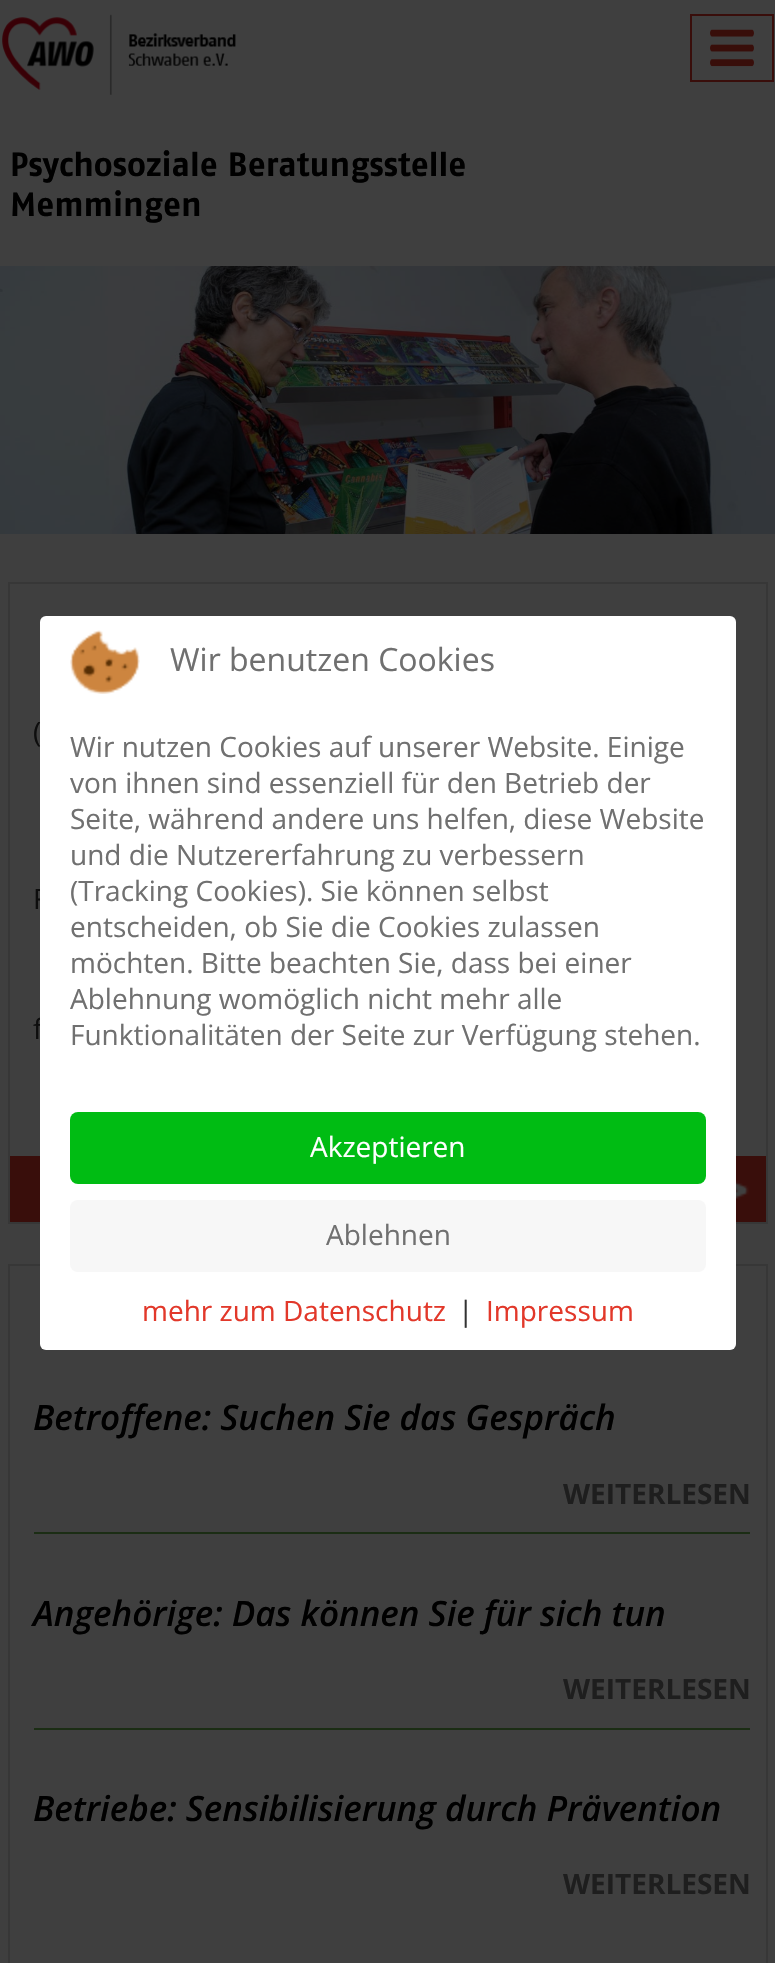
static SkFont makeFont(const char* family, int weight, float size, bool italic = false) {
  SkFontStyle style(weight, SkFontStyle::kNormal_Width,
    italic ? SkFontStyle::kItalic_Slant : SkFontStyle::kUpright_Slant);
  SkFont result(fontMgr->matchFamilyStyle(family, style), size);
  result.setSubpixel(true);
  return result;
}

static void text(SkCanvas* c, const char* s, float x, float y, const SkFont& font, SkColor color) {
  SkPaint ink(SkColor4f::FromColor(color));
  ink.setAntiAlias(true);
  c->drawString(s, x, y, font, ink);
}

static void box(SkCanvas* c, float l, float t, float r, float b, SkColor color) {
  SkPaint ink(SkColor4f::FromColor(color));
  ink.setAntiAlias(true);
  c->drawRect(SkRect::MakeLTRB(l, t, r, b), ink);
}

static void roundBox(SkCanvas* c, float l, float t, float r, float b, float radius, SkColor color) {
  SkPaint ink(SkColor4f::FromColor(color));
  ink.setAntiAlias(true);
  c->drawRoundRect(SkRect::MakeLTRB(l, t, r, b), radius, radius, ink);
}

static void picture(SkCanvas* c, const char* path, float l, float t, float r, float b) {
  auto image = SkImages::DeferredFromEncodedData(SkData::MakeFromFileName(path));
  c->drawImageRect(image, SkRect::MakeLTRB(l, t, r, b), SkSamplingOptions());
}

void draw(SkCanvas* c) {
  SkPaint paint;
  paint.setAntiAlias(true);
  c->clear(0xff3f3f3f);
  paint.setStyle(SkPaint::kStroke_Style);
  paint.setStrokeWidth(2);
  paint.setColor(0xff390e0b);
  c->drawRect(SkRect::MakeLTRB(691, 15, 773, 81), paint);
  picture(c, "img_01.png", 710, 29, 754, 67);
  picture(c, "img_02.png", 2, 14, 236, 95);
  SkFont face1 = makeFont("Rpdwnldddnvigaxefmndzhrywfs", 700, 33.6f);
  text(c, "Psychosoziale Beratungsstelle", 10, 176, face1, 0xff000000);
  text(c, "Memmingen", 10, 216, face1, 0xff000000);
  picture(c, "img_03.png", 0, 266, 775, 534);
  box(c, 10, 1156, 766, 1222, 0xff390e0b);
  paint.setColor(0xff373737);
  c->drawRect(SkRect::MakeLTRB(9, 583, 767, 1223), paint);
  SkFont face2 = makeFont("Open Sans", 400, 28);
  text(c, "(", 33, 742, face2, 0xff0d0d0d);
  text(c, "F", 33, 909, face2, 0xff0d0d0d);
  text(c, "f", 33, 1039, face2, 0xff0d0d0d);
  picture(c, "img_04.png", 736, 1181, 749, 1199);
  c->drawRect(SkRect::MakeLTRB(9, 1265, 767, 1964), paint);
  box(c, 34, 1532, 750, 1534, 0xff1b2d14);
  SkFont face3 = makeFont("Open Sans", 600, 35, true);
  text(c, "Betroffene: Suchen Sie das Gespräch", 33, 1430, face3, 0xff000000);
  SkFont face4 = makeFont("Open Sans", 700, 28);
  text(c, "WEITERLESEN", 563, 1504, face4, 0xff1e1e1e);
  box(c, 34, 1728, 750, 1730, 0xff1b2d14);
  text(c, "Angehörige: Das können Sie für sich tun", 33, 1626, face3, 0xff000000);
  text(c, "WEITERLESEN", 563, 1699, face4, 0xff1e1e1e);
  text(c, "Betriebe: Sensibilisierung durch Prävention", 33, 1821, face3, 0xff000000);
  text(c, "WEITERLESEN", 563, 1894, face4, 0xff1e1e1e);
  roundBox(c, 40, 616, 736, 1350, 6, 0xffffffff);
  picture(c, "img_05.png", 70, 630, 140, 694);
  SkFont face5 = makeFont("Open Sans", 400, 32);
  text(c, "Wir benutzen Cookies", 170, 671, face5, 0xff707070);
  text(c, "Wir nutzen Cookies auf unserer Website. Einige", 70, 757, face2, 0xff707070);
  text(c, "von ihnen sind essenziell für den Betrieb der", 70, 793, face2, 0xff707070);
  text(c, "Seite, während andere uns helfen, diese Website", 70, 829, face2, 0xff707070);
  text(c, "und die Nutzererfahrung zu verbessern", 70, 865, face2, 0xff707070);
  text(c, "(Tracking Cookies). Sie können selbst", 70, 901, face2, 0xff707070);
  text(c, "entscheiden, ob Sie die Cookies zulassen", 70, 937, face2, 0xff707070);
  text(c, "möchten. Bitte beachten Sie, dass bei einer", 70, 973, face2, 0xff707070);
  text(c, "Ablehnung womöglich nicht mehr alle", 70, 1009, face2, 0xff707070);
  text(c, "Funktionalitäten der Seite zur Verfügung stehen.", 70, 1045, face2, 0xff707070);
  roundBox(c, 70, 1112, 706, 1184, 8, 0xff00bc13);
  text(c, "Akzeptieren", 310, 1157, face2, 0xffffffff);
  roundBox(c, 70, 1200, 706, 1272, 8, 0xfff7f7f7);
  text(c, "Ablehnen", 326, 1245, face2, 0xff707070);
  text(c, "mehr zum Datenschutz", 142, 1321, face2, 0xffe2382a);
  text(c, "|", 458, 1321, face2, 0xff333333);
  text(c, "Impressum", 486, 1321, face2, 0xffe2382a);
}
